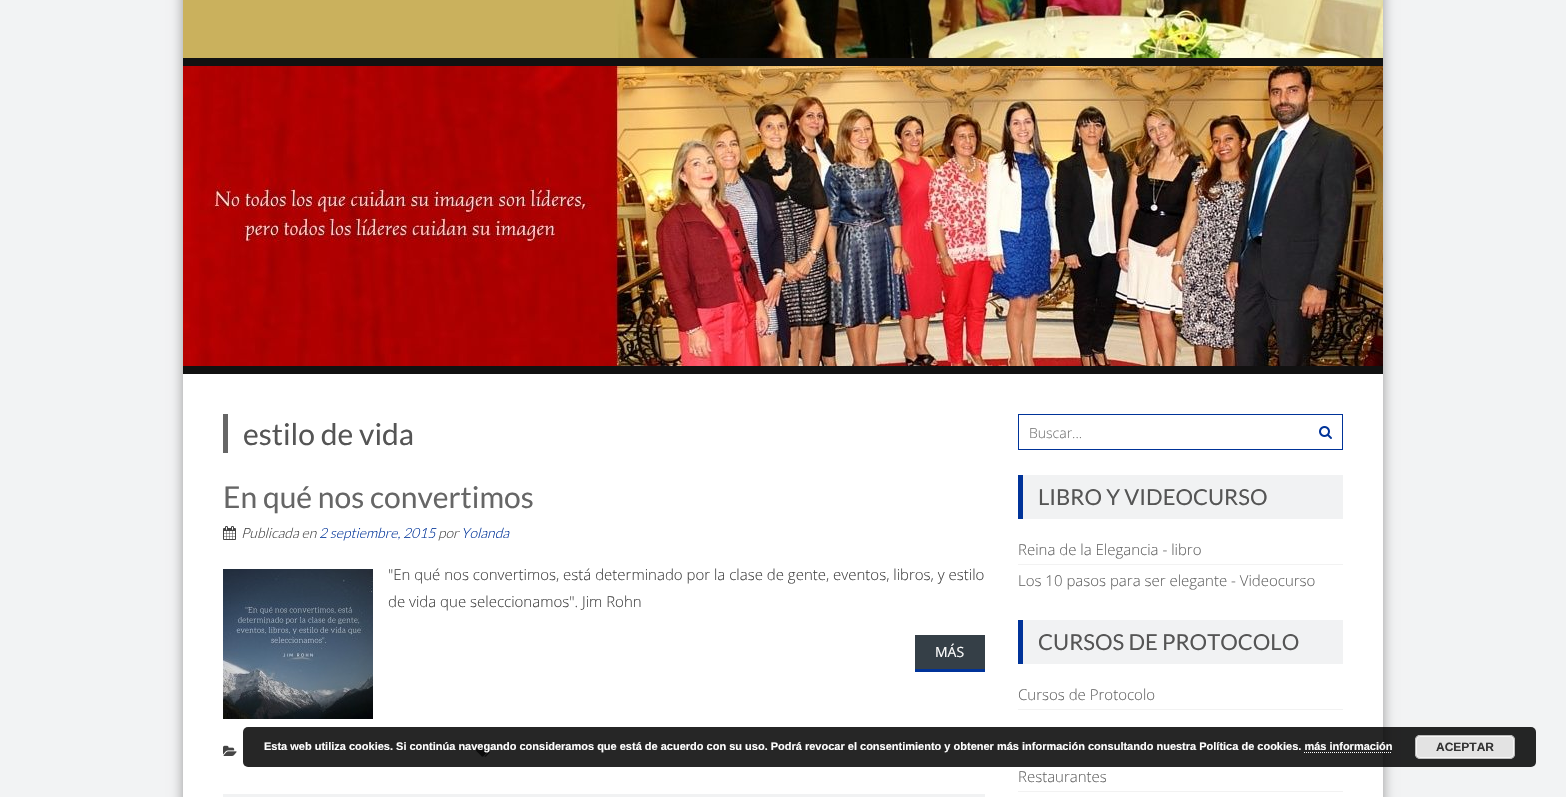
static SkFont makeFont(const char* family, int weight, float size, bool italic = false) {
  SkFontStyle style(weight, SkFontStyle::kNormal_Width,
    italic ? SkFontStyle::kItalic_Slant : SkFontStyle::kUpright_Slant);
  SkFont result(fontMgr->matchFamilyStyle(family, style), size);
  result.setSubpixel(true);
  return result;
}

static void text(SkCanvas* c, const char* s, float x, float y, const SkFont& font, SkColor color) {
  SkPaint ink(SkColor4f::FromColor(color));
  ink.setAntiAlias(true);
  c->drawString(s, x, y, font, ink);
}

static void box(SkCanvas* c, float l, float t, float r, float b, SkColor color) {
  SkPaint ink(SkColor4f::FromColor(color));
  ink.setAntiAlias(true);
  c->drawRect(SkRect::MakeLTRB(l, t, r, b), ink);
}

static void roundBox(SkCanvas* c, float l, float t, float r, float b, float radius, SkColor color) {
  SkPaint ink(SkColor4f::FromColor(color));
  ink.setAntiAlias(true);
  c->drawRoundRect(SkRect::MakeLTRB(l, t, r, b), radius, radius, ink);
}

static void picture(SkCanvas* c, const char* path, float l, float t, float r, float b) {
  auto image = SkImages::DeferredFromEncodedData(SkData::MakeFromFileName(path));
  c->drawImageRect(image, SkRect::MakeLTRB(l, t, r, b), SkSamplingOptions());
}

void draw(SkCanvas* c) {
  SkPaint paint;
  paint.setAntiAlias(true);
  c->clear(0xfff2f3f4);
  paint.setColor(0xff999999);
  paint.setMaskFilter(SkMaskFilter::MakeBlur(kNormal_SkBlurStyle, 6));
  c->drawRect(SkRect::MakeLTRB(183, -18, 1383, 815), paint);
  paint.setMaskFilter(nullptr);
  box(c, 183, 374, 1383, 797, 0xffffffff);
  box(c, 183, 58, 1383, 374, 0xff111111);
  picture(c, "img_01.png", 183, 0, 1383, 58);
  picture(c, "img_02.png", 183, 66, 1383, 366);
  box(c, 223, 414, 228, 453, 0xff666666);
  SkFont face1 = makeFont("Lato", 400, 30);
  text(c, "estilo de vida", 243, 445, face1, 0xff555555);
  box(c, 223, 794, 985, 797, 0xfff1f2f3);
  text(c, "En qué nos convertimos", 223, 508, face1, 0xff666666);
  picture(c, "img_03.png", 223, 526, 236, 540);
  SkFont face2 = makeFont("Lato", 300, 14, true);
  text(c, "Publicada en", 241, 538, face2, 0xff444444);
  text(c, "2 septiembre, 2015", 319, 538, face2, 0xff003399);
  text(c, "por", 438, 538, face2, 0xff444444);
  text(c, "Yolanda", 461, 538, face2, 0xff003399);
  picture(c, "img_04.png", 223, 569, 373, 719);
  SkFont face3 = makeFont("Open Sans", 300, 15);
  text(c, "\"En qué nos convertimos, está determinado por la clase de gente, eventos, libros, y estilo", 388, 580, face3, 0xff444444);
  text(c, "de vida que seleccionamos\". Jim Rohn", 388, 607, face3, 0xff444444);
  box(c, 915, 635, 985, 669, 0xff353f47);
  box(c, 915, 669, 985, 672, 0xff003399);
  SkFont face4 = makeFont("Open Sans", 400, 14);
  text(c, "MÁS", 935, 657, face4, 0xffffffff);
  picture(c, "img_05.png", 223, 745, 237, 756);
  picture(c, "img_06.png", 476, 745, 490, 757);
  paint.setStyle(SkPaint::kStroke_Style);
  paint.setStrokeWidth(1);
  paint.setColor(0xff003399);
  c->drawRect(SkRect::MakeLTRB(1018.5f, 414.5f, 1342.5f, 449.5f), paint);
  SkFont face5 = makeFont("Open Sans", 300, 14);
  text(c, "Buscar...", 1029, 438, face5, 0xff757575);
  picture(c, "img_07.png", 1319, 426, 1332, 439);
  box(c, 1023, 475, 1343, 519, 0xfff1f2f3);
  box(c, 1018, 475, 1023, 519, 0xff003399);
  SkFont face6 = makeFont("Lato", 400, 22);
  text(c, "LIBRO Y VIDEOCURSO", 1038, 505, face6, 0xff555555);
  box(c, 1018, 564, 1343, 565, 0xfff2f2f2);
  text(c, "Reina de la Elegancia - libro", 1018, 555, face3, 0xff666666);
  text(c, "Los 10 pasos para ser elegante - Videocurso", 1018, 586, face3, 0xff666666);
  box(c, 1023, 620, 1343, 664, 0xfff1f2f3);
  box(c, 1018, 620, 1023, 664, 0xff003399);
  text(c, "CURSOS DE PROTOCOLO", 1038, 650, face6, 0xff555555);
  box(c, 1018, 709, 1343, 710, 0xfff2f2f2);
  text(c, "Cursos de Protocolo", 1018, 700, face3, 0xff666666);
  box(c, 1018, 740, 1343, 741, 0xfff2f2f2);
  box(c, 1018, 791, 1343, 792, 0xfff2f2f2);
  text(c, "Restaurantes", 1018, 782, face3, 0xff666666);
  roundBox(c, 243, 727, 1536, 767, 5, 0xd9000000);
  SkFont face7 = makeFont("Liberation Sans", 700, 11);
  text(c, "Esta web utiliza cookies. Si continúa navegando consideramos que está de acuerdo con su uso. Podrá revocar el consentimiento y obtener más información consultando nuestra Política de cookies. más información", 264, 750, face7, 0xffffffff);
  roundBox(c, 1415, 735, 1515, 759, 5, 0xffe3e3e3);
  paint.setColor(0xfff6f6f6);
  c->drawRoundRect(SkRect::MakeLTRB(1416.5f, 736.5f, 1513.5f, 757.5f), 3.5f, 3.5f, paint);
  paint.setColor(0xffbbbbbb);
  c->drawRoundRect(SkRect::MakeLTRB(1415.5f, 735.5f, 1514.5f, 758.5f), 4.5f, 4.5f, paint);
  SkFont face8 = makeFont("Liberation Sans", 700, 12);
  text(c, "ACEPTAR", 1436, 751, face8, 0xff333333);
  paint.setColor(0xffffffff);
  paint.setPathEffect(SkDashPathEffect::Make({{1, 1}}, 0));
  c->drawPath(SkPathBuilder().moveTo(1304, 752.5f).lineTo(1392, 752.5f).detach(), paint);
  paint.setPathEffect(nullptr);
}
